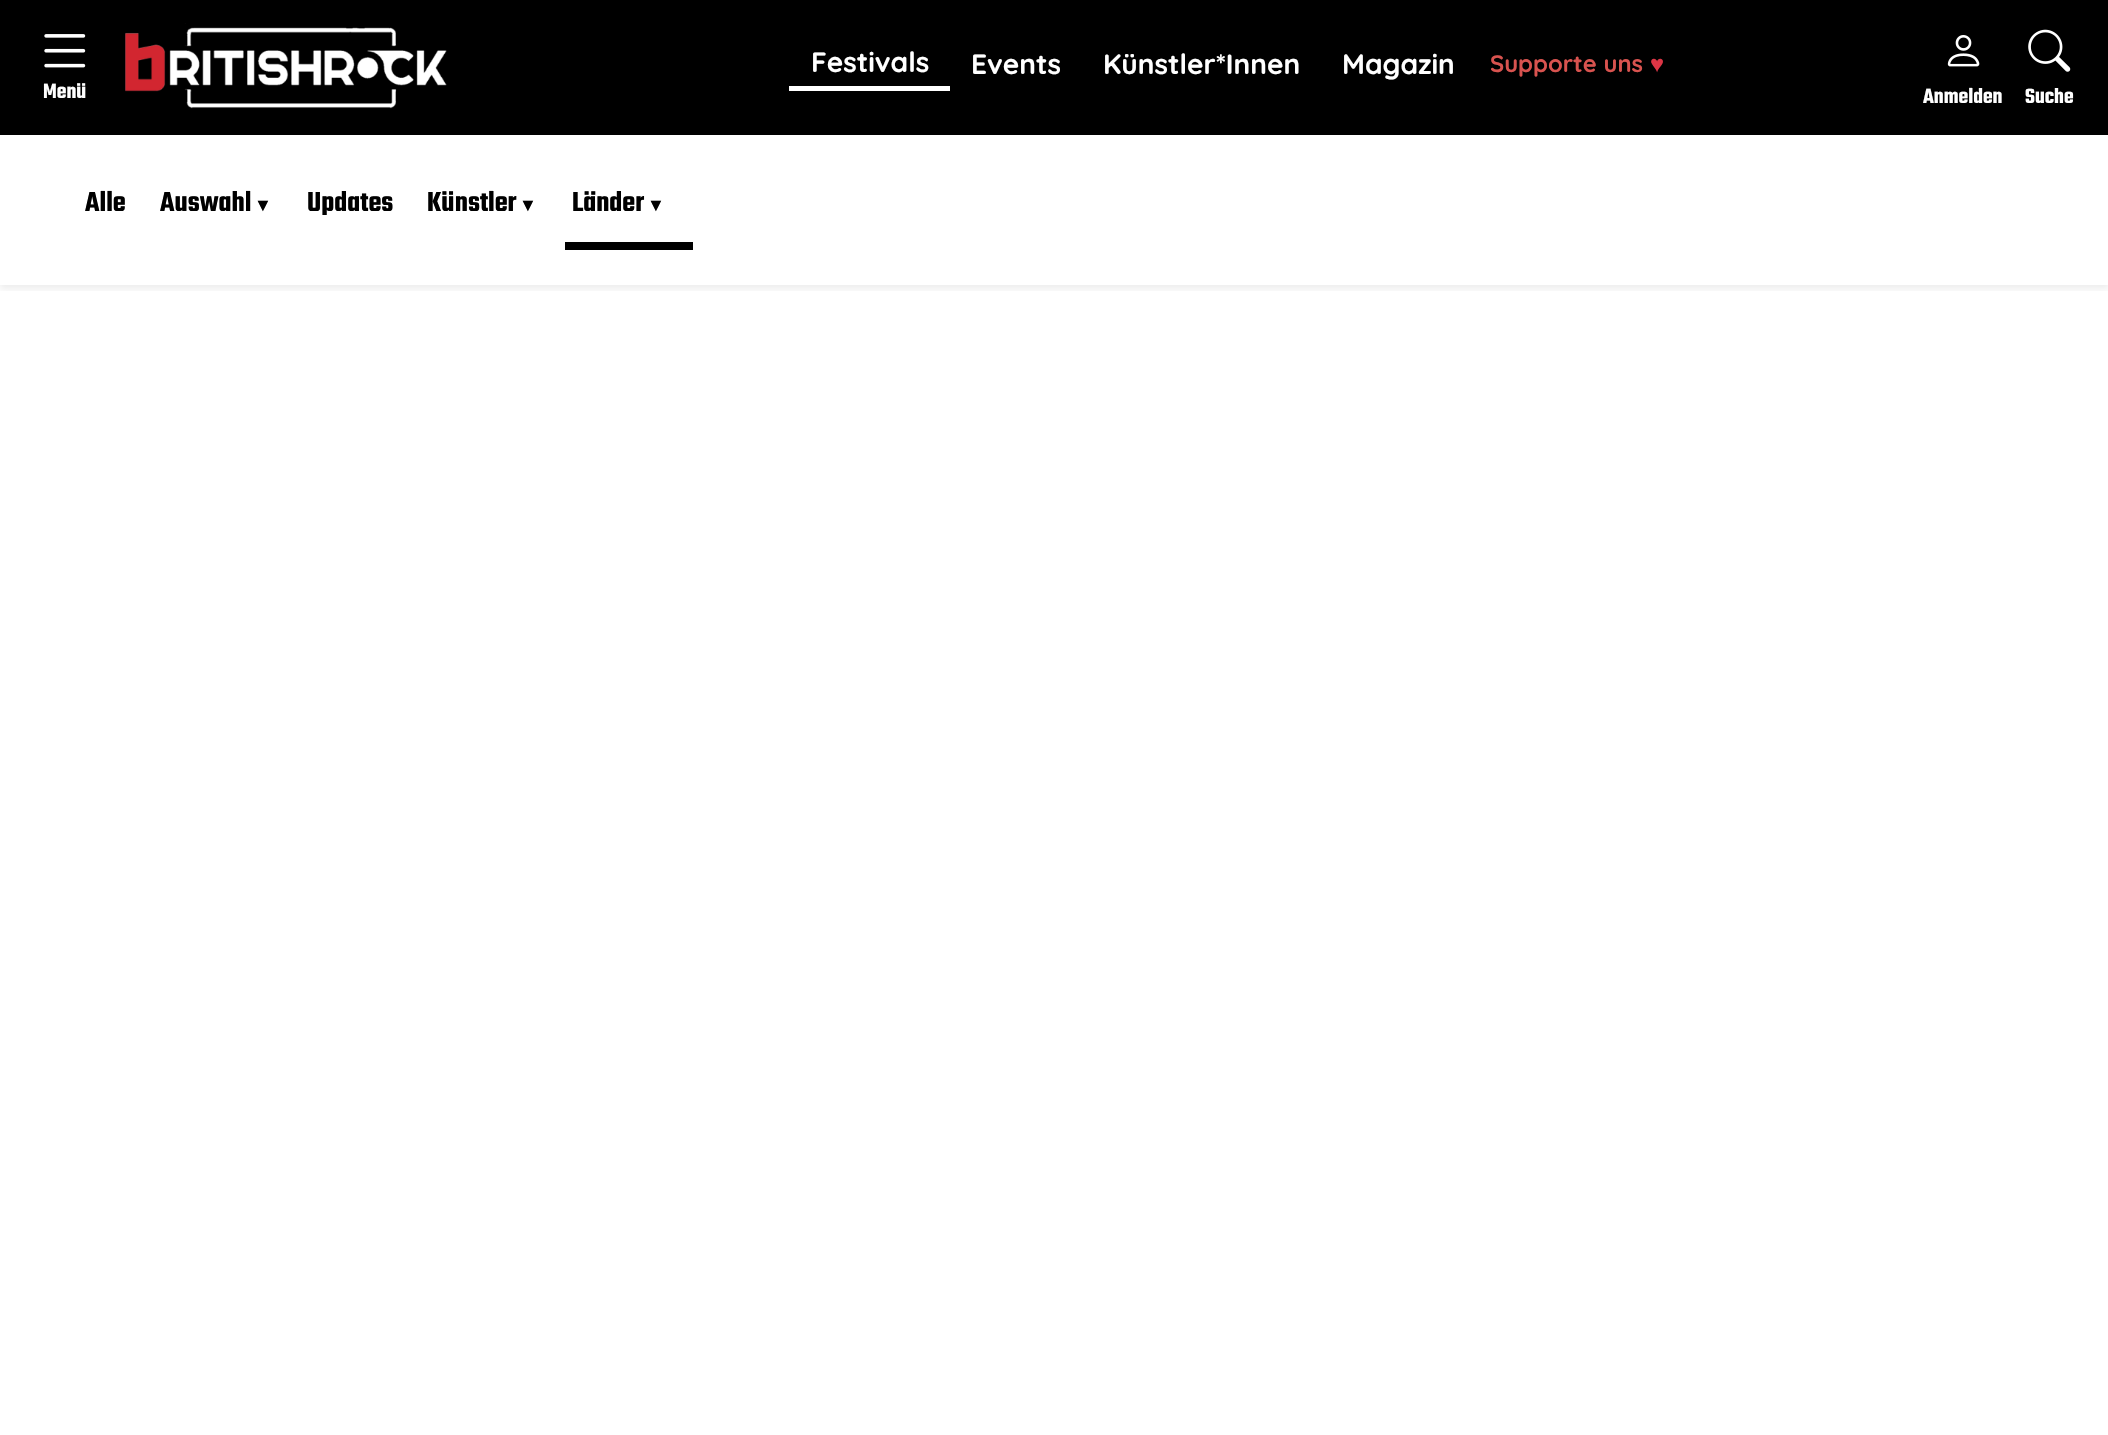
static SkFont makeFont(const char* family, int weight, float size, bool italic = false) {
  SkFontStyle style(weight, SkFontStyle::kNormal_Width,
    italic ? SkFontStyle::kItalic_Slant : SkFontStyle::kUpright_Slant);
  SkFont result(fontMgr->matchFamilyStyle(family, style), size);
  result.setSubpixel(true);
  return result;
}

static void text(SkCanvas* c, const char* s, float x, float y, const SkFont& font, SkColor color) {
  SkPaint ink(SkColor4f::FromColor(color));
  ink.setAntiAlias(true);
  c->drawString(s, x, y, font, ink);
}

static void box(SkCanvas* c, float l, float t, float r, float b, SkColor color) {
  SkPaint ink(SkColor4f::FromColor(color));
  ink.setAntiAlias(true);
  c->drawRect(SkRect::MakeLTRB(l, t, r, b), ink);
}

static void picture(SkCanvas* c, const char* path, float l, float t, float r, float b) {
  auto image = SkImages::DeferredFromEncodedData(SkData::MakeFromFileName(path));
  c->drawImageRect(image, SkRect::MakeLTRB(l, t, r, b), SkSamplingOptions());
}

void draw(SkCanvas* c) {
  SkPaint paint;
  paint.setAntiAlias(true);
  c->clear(0xffffffff);
  box(c, 0, 0, 2108, 135, 0xff000000);
  box(c, 789, 86, 950, 91, 0xffffffff);
  SkFont face1 = makeFont("Quicksand", 300, 28);
  text(c, "Festivals", 811, 72, face1, 0xffffffff);
  text(c, "Events", 971, 74, face1, 0xffffffff);
  text(c, "Künstler*Innen", 1103, 74, face1, 0xffffffff);
  text(c, "Magazin", 1342, 74, face1, 0xffffffff);
  SkFont face2 = makeFont("Quicksand", 300, 23.75f);
  text(c, "Supporte uns", 1490, 72, face2, 0xffd9534f);
  SkFont face3 = makeFont("Liberation Sans", 400, 23.75f);
  text(c, "♥", 1650, 72, face3, 0xffdc3545);
  picture(c, "img_01.png", 44, 34, 86, 68);
  SkFont face4 = makeFont("Teko", 600, 22.5f);
  text(c, "Menü", 43, 98, face4, 0xffffffff);
  picture(c, "img_02.png", 125, 23, 447, 109);
  picture(c, "img_03.png", 1947, 35, 1980, 67);
  text(c, "Anmelden", 1923, 103, face4, 0xffffffff);
  picture(c, "img_04.png", 2028, 29, 2071, 72);
  text(c, "Suche", 2025, 103, face4, 0xffffffff);
  c->save();
  c->clipRect(SkRect::MakeLTRB(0, 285, 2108, 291));
  paint.setColor(0x12000000);
  paint.setMaskFilter(SkMaskFilter::MakeBlur(kNormal_SkBlurStyle, 3.5f));
  c->drawRect(SkRect::MakeLTRB(0, 138, 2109, 289), paint);
  paint.setMaskFilter(nullptr);
  c->restore();
  SkFont face5 = makeFont("Teko", 600, 30);
  text(c, "Alle", 85, 211, face5, 0xff000000);
  text(c, "Auswahl", 160, 211, face5, 0xff000000);
  SkFont face6 = makeFont("Liberation Sans", 400, 18);
  text(c, "▼", 254, 211, face6, 0xff000000);
  text(c, "Updates", 307, 211, face5, 0xff000000);
  text(c, "Künstler", 427, 211, face5, 0xff000000);
  text(c, "▼", 519, 211, face6, 0xff000000);
  box(c, 565, 242, 693, 250, 0xff000000);
  text(c, "Länder", 572, 211, face5, 0xff000000);
  text(c, "▼", 647, 211, face6, 0xff000000);
}
